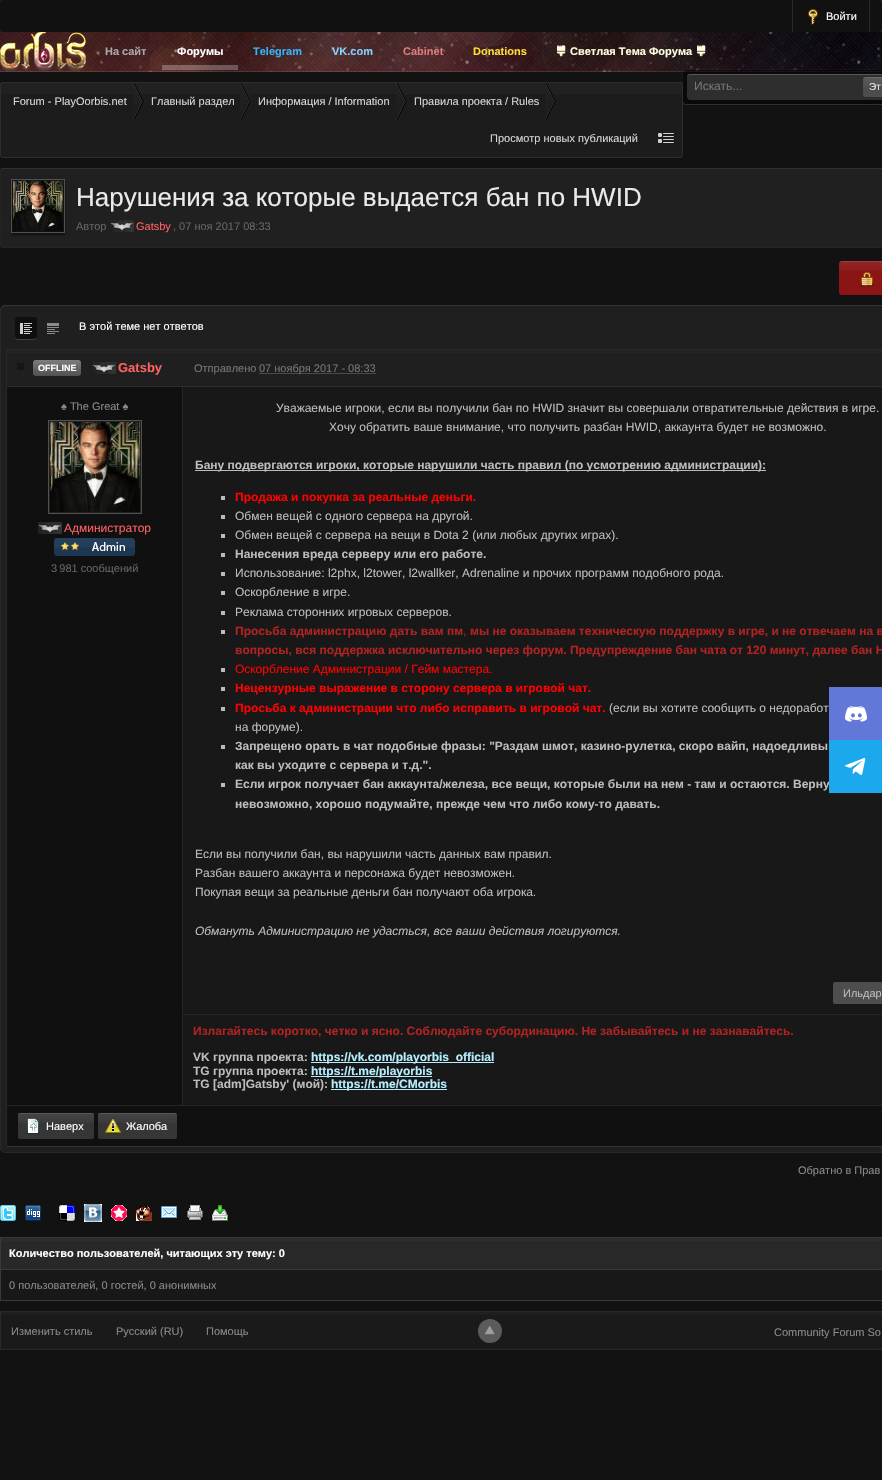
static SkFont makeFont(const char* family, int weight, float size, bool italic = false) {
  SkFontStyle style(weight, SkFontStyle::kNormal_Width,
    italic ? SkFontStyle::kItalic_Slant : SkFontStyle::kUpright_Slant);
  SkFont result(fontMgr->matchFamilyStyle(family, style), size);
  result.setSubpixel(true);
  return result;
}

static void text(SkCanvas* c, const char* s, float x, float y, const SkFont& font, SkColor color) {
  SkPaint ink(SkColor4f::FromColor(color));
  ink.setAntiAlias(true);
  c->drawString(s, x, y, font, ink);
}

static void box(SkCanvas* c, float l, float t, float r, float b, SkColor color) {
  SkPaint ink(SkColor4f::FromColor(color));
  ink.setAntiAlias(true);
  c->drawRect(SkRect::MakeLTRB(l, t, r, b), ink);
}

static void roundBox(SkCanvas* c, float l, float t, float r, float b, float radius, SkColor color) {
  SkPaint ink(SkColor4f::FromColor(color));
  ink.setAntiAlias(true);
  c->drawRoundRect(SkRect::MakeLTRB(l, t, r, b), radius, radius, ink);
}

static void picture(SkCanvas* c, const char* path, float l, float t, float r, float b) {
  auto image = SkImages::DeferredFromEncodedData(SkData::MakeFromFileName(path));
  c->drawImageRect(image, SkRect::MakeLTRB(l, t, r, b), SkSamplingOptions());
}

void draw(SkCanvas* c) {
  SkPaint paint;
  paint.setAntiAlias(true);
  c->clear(0xff121212);
  paint.setColor(0x40ffffff);
  paint.setMaskFilter(SkMaskFilter::MakeBlur(kNormal_SkBlurStyle, 0.5f));
  c->drawRoundRect(SkRect::MakeLTRB(0, 0, 882, 32), 3, 3, paint);
  paint.setMaskFilter(nullptr);
  roundBox(c, 0, 0, 882, 32, 3, 0xff111111);
  box(c, 792, 0, 793, 32, 0xff292929);
  picture(c, "img_01.png", 808, 9, 818, 25);
  SkFont face1 = makeFont("Liberation Sans", 400, 11);
  text(c, "Войти", 826, 20, face1, 0xffffffff);
  box(c, 869, 0, 870, 32, 0xff292929);
  picture(c, "img_02.png", 0, 32, 882, 72);
  picture(c, "img_03.png", 0, 32, 882, 72);
  box(c, 0, 71, 882, 72, 0x1affffff);
  picture(c, "img_04.png", 0, 32, 86, 72);
  SkFont face2 = makeFont("Liberation Sans", 700, 11);
  text(c, "На сайт", 105, 55, face2, 0xffa9a9a9);
  box(c, 162, 65, 238, 70, 0x42ffffff);
  text(c, "Форумы", 177, 55, face2, 0xffffffff);
  text(c, "Telegram", 253, 55, face2, 0xff34b4ff);
  text(c, "VK.com", 332, 55, face2, 0xff83d1ff);
  text(c, "Cabinet", 403, 55, face2, 0xffde7b7b);
  text(c, "Donations", 473, 55, face2, 0xffffdd34);
  picture(c, "img_05.png", 557, 45, 566, 57);
  text(c, "Светлая Тема Форума", 570, 55, face2, 0xffffffe0);
  picture(c, "img_06.png", 697, 45, 706, 57);
  paint.setColor(0xff2a2a2a);
  c->drawPath(SkPathBuilder().moveTo(683, 101).lineTo(684, 104).lineTo(685, 105).lineTo(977, 105).cubicTo(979, 105, 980, 103, 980, 101).cubicTo(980, 103, 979, 104, 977, 104).lineTo(686, 104).cubicTo(684, 104, 683, 103, 683, 101).close().detach(), paint);
  c->save();
  c->clipPath(SkPathBuilder(SkPathFillType::kEvenOdd).moveTo(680, 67).lineTo(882, 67).lineTo(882, 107).lineTo(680, 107).close().moveTo(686, 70).lineTo(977, 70).cubicTo(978.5f, 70, 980, 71.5f, 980, 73).lineTo(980, 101).cubicTo(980, 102.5f, 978.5f, 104, 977, 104).lineTo(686, 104).cubicTo(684.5f, 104, 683, 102.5f, 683, 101).lineTo(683, 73).cubicTo(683, 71.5f, 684.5f, 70, 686, 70).close().detach(), true);
  paint.setColor(0x40ffffff);
  paint.setMaskFilter(SkMaskFilter::MakeBlur(kNormal_SkBlurStyle, 0.5f));
  c->drawRoundRect(SkRect::MakeLTRB(683, 70, 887, 104), 3, 3, paint);
  paint.setMaskFilter(nullptr);
  c->restore();
  roundBox(c, 683, 70, 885, 104, 3, 0x80000000);
  paint.setColor(0xff2e2e2e);
  c->drawPath(SkPathBuilder().moveTo(690, 74).lineTo(882, 74).cubicTo(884, 74, 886, 76, 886, 78).lineTo(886, 96).cubicTo(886, 98, 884, 100, 882, 100).lineTo(690, 100).cubicTo(688.5f, 100, 687, 98.5f, 687, 97).lineTo(687, 77).cubicTo(687, 75.5f, 688.5f, 74, 690, 74).close().detach(), paint);
  paint.setColor(0x33ffffff);
  c->drawPath(SkPathBuilder().moveTo(690, 75).lineTo(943, 75).cubicTo(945, 75, 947, 77, 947, 79).lineTo(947, 78).cubicTo(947, 76, 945, 74, 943, 74).lineTo(690, 74).cubicTo(688, 74, 687, 75, 687, 77).lineTo(687, 78).cubicTo(687, 76, 688, 75, 690, 75).close().detach(), paint);
  SkFont face3 = makeFont("Liberation Sans", 400, 12);
  text(c, "Искать...", 694, 90, face3, 0xff757575);
  roundBox(c, 863, 77, 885, 97, 3, 0xff4d4d4d);
  picture(c, "img_07.png", 863, 77, 882, 87);
  SkFont face4 = makeFont("Liberation Sans", 400, 10);
  text(c, "Эт", 869, 90, face4, 0xffeaeaea);
  roundBox(c, 0, 82, 683, 158, 3, 0xff1c1c1c);
  box(c, 0, 83, 683, 94, 0xff212121);
  paint.setStyle(SkPaint::kStroke_Style);
  paint.setStrokeWidth(1);
  paint.setColor(0xff2d2d2d);
  c->drawRoundRect(SkRect::MakeLTRB(0.5f, 82.5f, 682.5f, 157.5f), 2.5f, 2.5f, paint);
  picture(c, "img_08.png", 133, 83, 144, 120);
  text(c, "Forum - PlayOorbis.net", 13, 105, face1, 0xffd7d7d7);
  picture(c, "img_09.png", 240, 83, 251, 120);
  text(c, "Главный раздел", 151, 105, face1, 0xffd7d7d7);
  picture(c, "img_10.png", 242, 83, 251, 104);
  picture(c, "img_08.png", 396, 83, 407, 120);
  text(c, "Информация / Information", 258, 105, face1, 0xffd7d7d7);
  picture(c, "img_11.png", 545, 83, 556, 120);
  text(c, "Правила проекта / Rules", 414, 105, face1, 0xffd7d7d7);
  text(c, "Просмотр новых публикаций", 490, 142, face1, 0xffd7d7d7);
  picture(c, "img_12.png", 658, 133, 674, 143);
  roundBox(c, 0, 168, 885, 248, 3, 0xff202020);
  paint.setColor(0xff303030);
  c->drawPath(SkPathBuilder().moveTo(1, 169).lineTo(3, 168.5f).lineTo(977, 168.5f).lineTo(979, 169).detach(), paint);
  paint.setColor(0xff242424);
  c->drawPath(SkPathBuilder().moveTo(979, 169).cubicTo(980.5f, 171, 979.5f, 225.5f, 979.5f, 232.5f).cubicTo(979.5f, 238, 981.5f, 247.5f, 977, 247.5f).lineTo(3, 247.5f).cubicTo(-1.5f, 247.5f, 0.5f, 238, 0.5f, 232.5f).cubicTo(0.5f, 225.5f, -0.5f, 171, 1, 169).detach(), paint);
  paint.setStyle(SkPaint::kFill_Style);
  paint.setColor(0x80000000);
  paint.setMaskFilter(SkMaskFilter::MakeBlur(kNormal_SkBlurStyle, 1));
  c->drawRect(SkRect::MakeLTRB(11, 181, 65, 235), paint);
  paint.setMaskFilter(nullptr);
  paint.setStyle(SkPaint::kStroke_Style);
  paint.setColor(0xff505050);
  c->drawRect(SkRect::MakeLTRB(11.5f, 179.5f, 64.5f, 232.5f), paint);
  picture(c, "img_13.png", 13, 181, 63, 231);
  SkFont face5 = makeFont("Liberation Sans", 400, 26);
  text(c, "Нарушения за которые выдается бан по HWID", 76, 206, face5, 0xffeaeaea);
  text(c, "Автор", 76, 230, face1, 0xff646464);
  picture(c, "img_14.png", 110, 220, 134, 232);
  text(c, "Gatsby", 136, 230, face1, 0xffff6161);
  text(c, ", 07 ноя 2017 08:33", 173, 230, face1, 0xff646464);
  roundBox(c, 839, 261, 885, 295, 3, 0xff8b1515);
  picture(c, "img_15.png", 839, 261, 882, 271);
  picture(c, "img_16.png", 859, 272, 875, 287);
  roundBox(c, 0, 305, 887, 1153, 5, 0xff1f1f1f);
  paint.setColor(0xff363636);
  c->drawPath(SkPathBuilder().moveTo(2, 307).lineTo(5, 305.5f).lineTo(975, 305.5f).lineTo(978, 307).detach(), paint);
  paint.setColor(0xff282828);
  c->drawPath(SkPathBuilder().moveTo(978, 307).cubicTo(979, 307.5f, 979.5f, 309, 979.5f, 310).lineTo(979.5f, 1148).cubicTo(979.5f, 1149, 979, 1150.5f, 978, 1151).cubicTo(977.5f, 1152, 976, 1152.5f, 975, 1152.5f).lineTo(5, 1152.5f).cubicTo(4, 1152.5f, 2.5f, 1152, 2, 1151).cubicTo(1, 1150.5f, 0.5f, 1149, 0.5f, 1148).lineTo(0.5f, 310).cubicTo(0.5f, 309, 1, 307.5f, 2, 307).detach(), paint);
  paint.setStyle(SkPaint::kFill_Style);
  paint.setColor(0x26ffffff);
  c->drawPath(SkPathBuilder().moveTo(15, 336).cubicTo(15, 340, 17, 340, 20.5f, 340).lineTo(31.5f, 340).cubicTo(35, 340, 37, 340, 37, 336).cubicTo(37, 337.5f, 35.5f, 339, 34, 339).lineTo(18, 339).cubicTo(16.5f, 339, 15, 337.5f, 15, 336).close().detach(), paint);
  roundBox(c, 15, 317, 37, 339, 3, 0x80000000);
  picture(c, "img_17.png", 20, 323, 32, 334);
  picture(c, "img_18.png", 47, 323, 59, 334);
  text(c, "В этой теме нет ответов", 79, 330, face1, 0xffffffff);
  box(c, 6, 349, 882, 350, 0xff282828);
  box(c, 6, 1146, 882, 1147, 0xff343434);
  box(c, 6, 349, 7, 1147, 0xff282828);
  box(c, 7, 387, 182, 1105, 0xff101010);
  box(c, 7, 350, 882, 353, 0xff242424);
  box(c, 7, 386, 882, 387, 0xff2d2d2d);
  box(c, 17, 363, 24, 370, 0xff161616);
  roundBox(c, 33, 360, 81, 376, 3, 0xff515151);
  picture(c, "img_19.png", 33, 360, 81, 375);
  SkFont face6 = makeFont("Liberation Sans", 700, 9);
  text(c, "OFFLINE", 38, 371, face6, 0xffffffff);
  picture(c, "img_14.png", 92, 362, 116, 374);
  SkFont face7 = makeFont("Liberation Sans", 700, 13);
  text(c, "Gatsby", 118, 372, face7, 0xffff6161);
  text(c, "Отправлено", 194, 372, face1, 0xff757575);
  paint.setStyle(SkPaint::kStroke_Style);
  paint.setColor(0xff777777);
  paint.setPathEffect(SkDashPathEffect::Make({{1, 1}}, 0));
  c->drawPath(SkPathBuilder().moveTo(259.5f, 373.5f).lineTo(376, 373.5f).detach(), paint);
  paint.setPathEffect(nullptr);
  text(c, "07 ноября 2017 - 08:33", 259, 372, face1, 0xff757575);
  text(c, "♠ The Great ♠", 61, 410, face1, 0xff898989);
  paint.setStyle(SkPaint::kFill_Style);
  paint.setColor(0xff202020);
  c->drawRect(SkRect::MakeLTRB(48.5f, 420.5f, 141.5f, 513.5f), paint);
  paint.setStyle(SkPaint::kStroke_Style);
  paint.setColor(0xff505050);
  c->drawRect(SkRect::MakeLTRB(48.5f, 420.5f, 141.5f, 513.5f), paint);
  picture(c, "img_20.png", 50, 422, 140, 512);
  picture(c, "img_14.png", 38, 522, 62, 534);
  text(c, "Администратор", 64, 532, face3, 0xffff6161);
  picture(c, "img_21.png", 54, 538, 135, 556);
  text(c, "3 981 сообщений", 51, 572, face1, 0xff646464);
  box(c, 183, 387, 882, 1105, 0xff181818);
  box(c, 182, 387, 183, 1105, 0xff252525);
  text(c, "Уважаемые игроки, если вы получили бан по HWID значит вы совершали отвратительные действия в игре.", 276, 412, face3, 0xffbcbcbc);
  text(c, "Хочу обратить ваше внимание, что получить разбан HWID, аккаунта будет не возможно.", 329, 431, face3, 0xffbcbcbc);
  box(c, 195, 470, 766, 471, 0xffbcbcbc);
  SkFont face8 = makeFont("Liberation Sans", 700, 12);
  text(c, "Бану подвергаются игроки, которые нарушили часть правил (по усмотрению администрации):", 195, 469, face8, 0xffbcbcbc);
  box(c, 221, 496, 225, 500, 0xffbcbcbc);
  text(c, "Продажа и покупка за реальные деньги.", 235, 501, face8, 0xffff0000);
  box(c, 221, 515, 225, 519, 0xffbcbcbc);
  text(c, "Обмен вещей с одного сервера на другой.", 235, 520, face3, 0xffbcbcbc);
  box(c, 221, 534, 225, 538, 0xffbcbcbc);
  text(c, "Обмен вещей с сервера на вещи в Dota 2 (или любых других играх).", 235, 539, face3, 0xffbcbcbc);
  box(c, 221, 553, 225, 557, 0xffbcbcbc);
  text(c, "Нанесения вреда серверу или его работе.", 235, 558, face8, 0xffbcbcbc);
  box(c, 221, 572, 225, 576, 0xffbcbcbc);
  text(c, "Использование: l2phx, l2tower, l2wallker, Adrenaline и прочих программ подобного рода.", 235, 577, face3, 0xffbcbcbc);
  box(c, 221, 591, 225, 595, 0xffbcbcbc);
  text(c, "Оскорбление в игре.", 235, 596, face3, 0xffbcbcbc);
  box(c, 221, 611, 225, 615, 0xffbcbcbc);
  text(c, "Реклама сторонних игровых серверов.", 235, 616, face3, 0xffbcbcbc);
  box(c, 221, 630, 225, 634, 0xffbcbcbc);
  text(c, "Просьба администрацию дать вам пм", 235, 635, face8, 0xffb22222);
  text(c, "мы не оказываем техническую поддержку в игре, и не отвечаем на в", 470, 635, face8, 0xffb22222);
  text(c, ",", 463, 635, face3, 0xffb22222);
  text(c, "вопросы, вся поддержка исключительно через форум. Предупреждение бан чата от 120 минут, далее бан H", 235, 654, face8, 0xffb22222);
  box(c, 221, 668, 225, 672, 0xffbcbcbc);
  text(c, "Оскорбление Администрации / Гейм мастера.", 235, 673, face3, 0xffff0000);
  box(c, 221, 687, 225, 691, 0xffbcbcbc);
  text(c, "Нецензурные выражение в сторону сервера в игровой чат.", 235, 692, face8, 0xffff0000);
  box(c, 221, 707, 225, 711, 0xffbcbcbc);
  text(c, "Просьба к администрации что либо исправить в игровой чат.", 235, 712, face8, 0xffff0000);
  text(c, "(если вы хотите сообщить о недоработ", 609, 712, face3, 0xffbcbcbc);
  text(c, "на форуме).", 235, 731, face3, 0xffbcbcbc);
  box(c, 221, 745, 225, 749, 0xffbcbcbc);
  text(c, "Запрещено орать в чат подобные фразы: \"Раздам шмот, казино-рулетка, скоро вайп, надоедливы", 235, 750, face8, 0xffbcbcbc);
  text(c, "как вы уходите с сервера и т.д.\".", 235, 769, face8, 0xffbcbcbc);
  box(c, 221, 783, 225, 787, 0xffbcbcbc);
  text(c, "Если игрок получает бан аккаунта/железа, все вещи, которые были на нем - там и остаются. Верну", 235, 788, face8, 0xffbcbcbc);
  text(c, "невозможно, хорошо подумайте, прежде чем что либо кому-то давать.", 235, 808, face8, 0xffbcbcbc);
  text(c, "Если вы получили бан, вы нарушили часть данных вам правил.", 195, 858, face3, 0xffbcbcbc);
  text(c, "Разбан вашего аккаунта и персонажа будет невозможен.", 195, 877, face3, 0xffbcbcbc);
  text(c, "Покупая вещи за реальные деньги бан получают оба игрока.", 195, 896, face3, 0xffbcbcbc);
  SkFont face9 = makeFont("Liberation Sans", 400, 12, true);
  text(c, "Обмануть Администрацию не удасться, все ваши действия логируются.", 195, 935, face9, 0xffbcbcbc);
  roundBox(c, 833, 982, 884, 1004, 2, 0xff4d4d4d);
  text(c, "Ильдар", 843, 997, face1, 0xffbcbcbc);
  box(c, 183, 1014, 882, 1015, 0xff252525);
  text(c, "Излагайтесь коротко, четко и ясно. Соблюдайте субординацию. Не забывайтесь и не зазнавайтесь.", 193, 1035, face8, 0xffb22222);
  text(c, "VK группа проекта:", 193, 1061, face8, 0xffbcbcbc);
  box(c, 311, 1062, 494, 1063, 0xffb4eeff);
  text(c, "https://vk.com/playorbis_official", 311, 1061, face8, 0xffb4eeff);
  text(c, "TG группа проекта:", 193, 1075, face8, 0xffbcbcbc);
  box(c, 311, 1076, 432, 1077, 0xffb4eeff);
  text(c, "https://t.me/playorbis", 311, 1075, face8, 0xffb4eeff);
  text(c, "TG [adm]Gatsby' (мой):", 193, 1088, face8, 0xffbcbcbc);
  box(c, 331, 1089, 447, 1090, 0xffb4eeff);
  text(c, "https://t.me/CMorbis", 331, 1088, face8, 0xffb4eeff);
  box(c, 7, 1106, 882, 1146, 0xff101010);
  box(c, 7, 1105, 882, 1106, 0xff252525);
  roundBox(c, 18, 1113, 94, 1139, 2, 0xff363636);
  picture(c, "img_22.png", 18, 1113, 94, 1123);
  picture(c, "img_23.png", 26, 1118, 40, 1134);
  text(c, "Наверх", 46, 1130, face1, 0xffffffff);
  roundBox(c, 98, 1113, 177, 1139, 2, 0xff363636);
  picture(c, "img_24.png", 98, 1113, 177, 1123);
  picture(c, "img_25.png", 105, 1119, 121, 1134);
  text(c, "Жалоба", 126, 1130, face1, 0xffffffff);
  text(c, "Обратно в Прав", 798, 1174, face1, 0xff898989);
  picture(c, "img_26.png", 0, 1205, 16, 1221);
  picture(c, "img_27.png", 25, 1205, 41, 1221);
  picture(c, "img_28.png", 59, 1205, 75, 1221);
  picture(c, "img_29.png", 84, 1204, 102, 1222);
  picture(c, "img_30.png", 111, 1205, 127, 1221);
  picture(c, "img_31.png", 136, 1205, 152, 1221);
  picture(c, "img_32.png", 161, 1206, 177, 1218);
  picture(c, "img_33.png", 187, 1205, 203, 1220);
  picture(c, "img_34.png", 212, 1205, 228, 1221);
  box(c, 1, 1270, 882, 1300, 0xff181818);
  paint.setColor(0xff393939);
  c->drawRect(SkRect::MakeLTRB(0.5f, 1237.5f, 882.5f, 1300.5f), paint);
  box(c, 1, 1241, 882, 1269, 0xff282828);
  box(c, 1, 1238, 882, 1241, 0xff2c2c2c);
  box(c, 1, 1269, 882, 1270, 0xff393939);
  text(c, "Количество пользователей, читающих эту тему: 0", 9, 1257, face2, 0xffffffff);
  text(c, "0 пользователей, 0 гостей, 0 анонимных", 9, 1289, face1, 0xff898989);
  box(c, 1, 1315, 882, 1349, 0xff1a1a1a);
  box(c, 0, 1312, 882, 1315, 0xff1f1f1f);
  paint.setColor(0xff2a2a2a);
  c->drawRect(SkRect::MakeLTRB(0.5f, 1311.5f, 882.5f, 1349.5f), paint);
  text(c, "Изменить стиль", 11, 1335, face1, 0xff898989);
  text(c, "Русский (RU)", 116, 1335, face1, 0xff898989);
  text(c, "Помощь", 206, 1335, face1, 0xff898989);
  paint.setStyle(SkPaint::kFill_Style);
  paint.setColor(0xff5b5b5b);
  c->drawCircle(490, 1331, 12, paint);
  picture(c, "img_35.png", 485, 1326, 495, 1335);
  text(c, "Community Forum So", 774, 1336, face1, 0xff898989);
  box(c, 829, 687, 882, 740, 0xff6278d8);
  picture(c, "img_36.png", 845, 706, 867, 722);
  box(c, 829, 740, 882, 793, 0xff1ba8ec);
  picture(c, "img_37.png", 845, 758, 866, 775);
}
